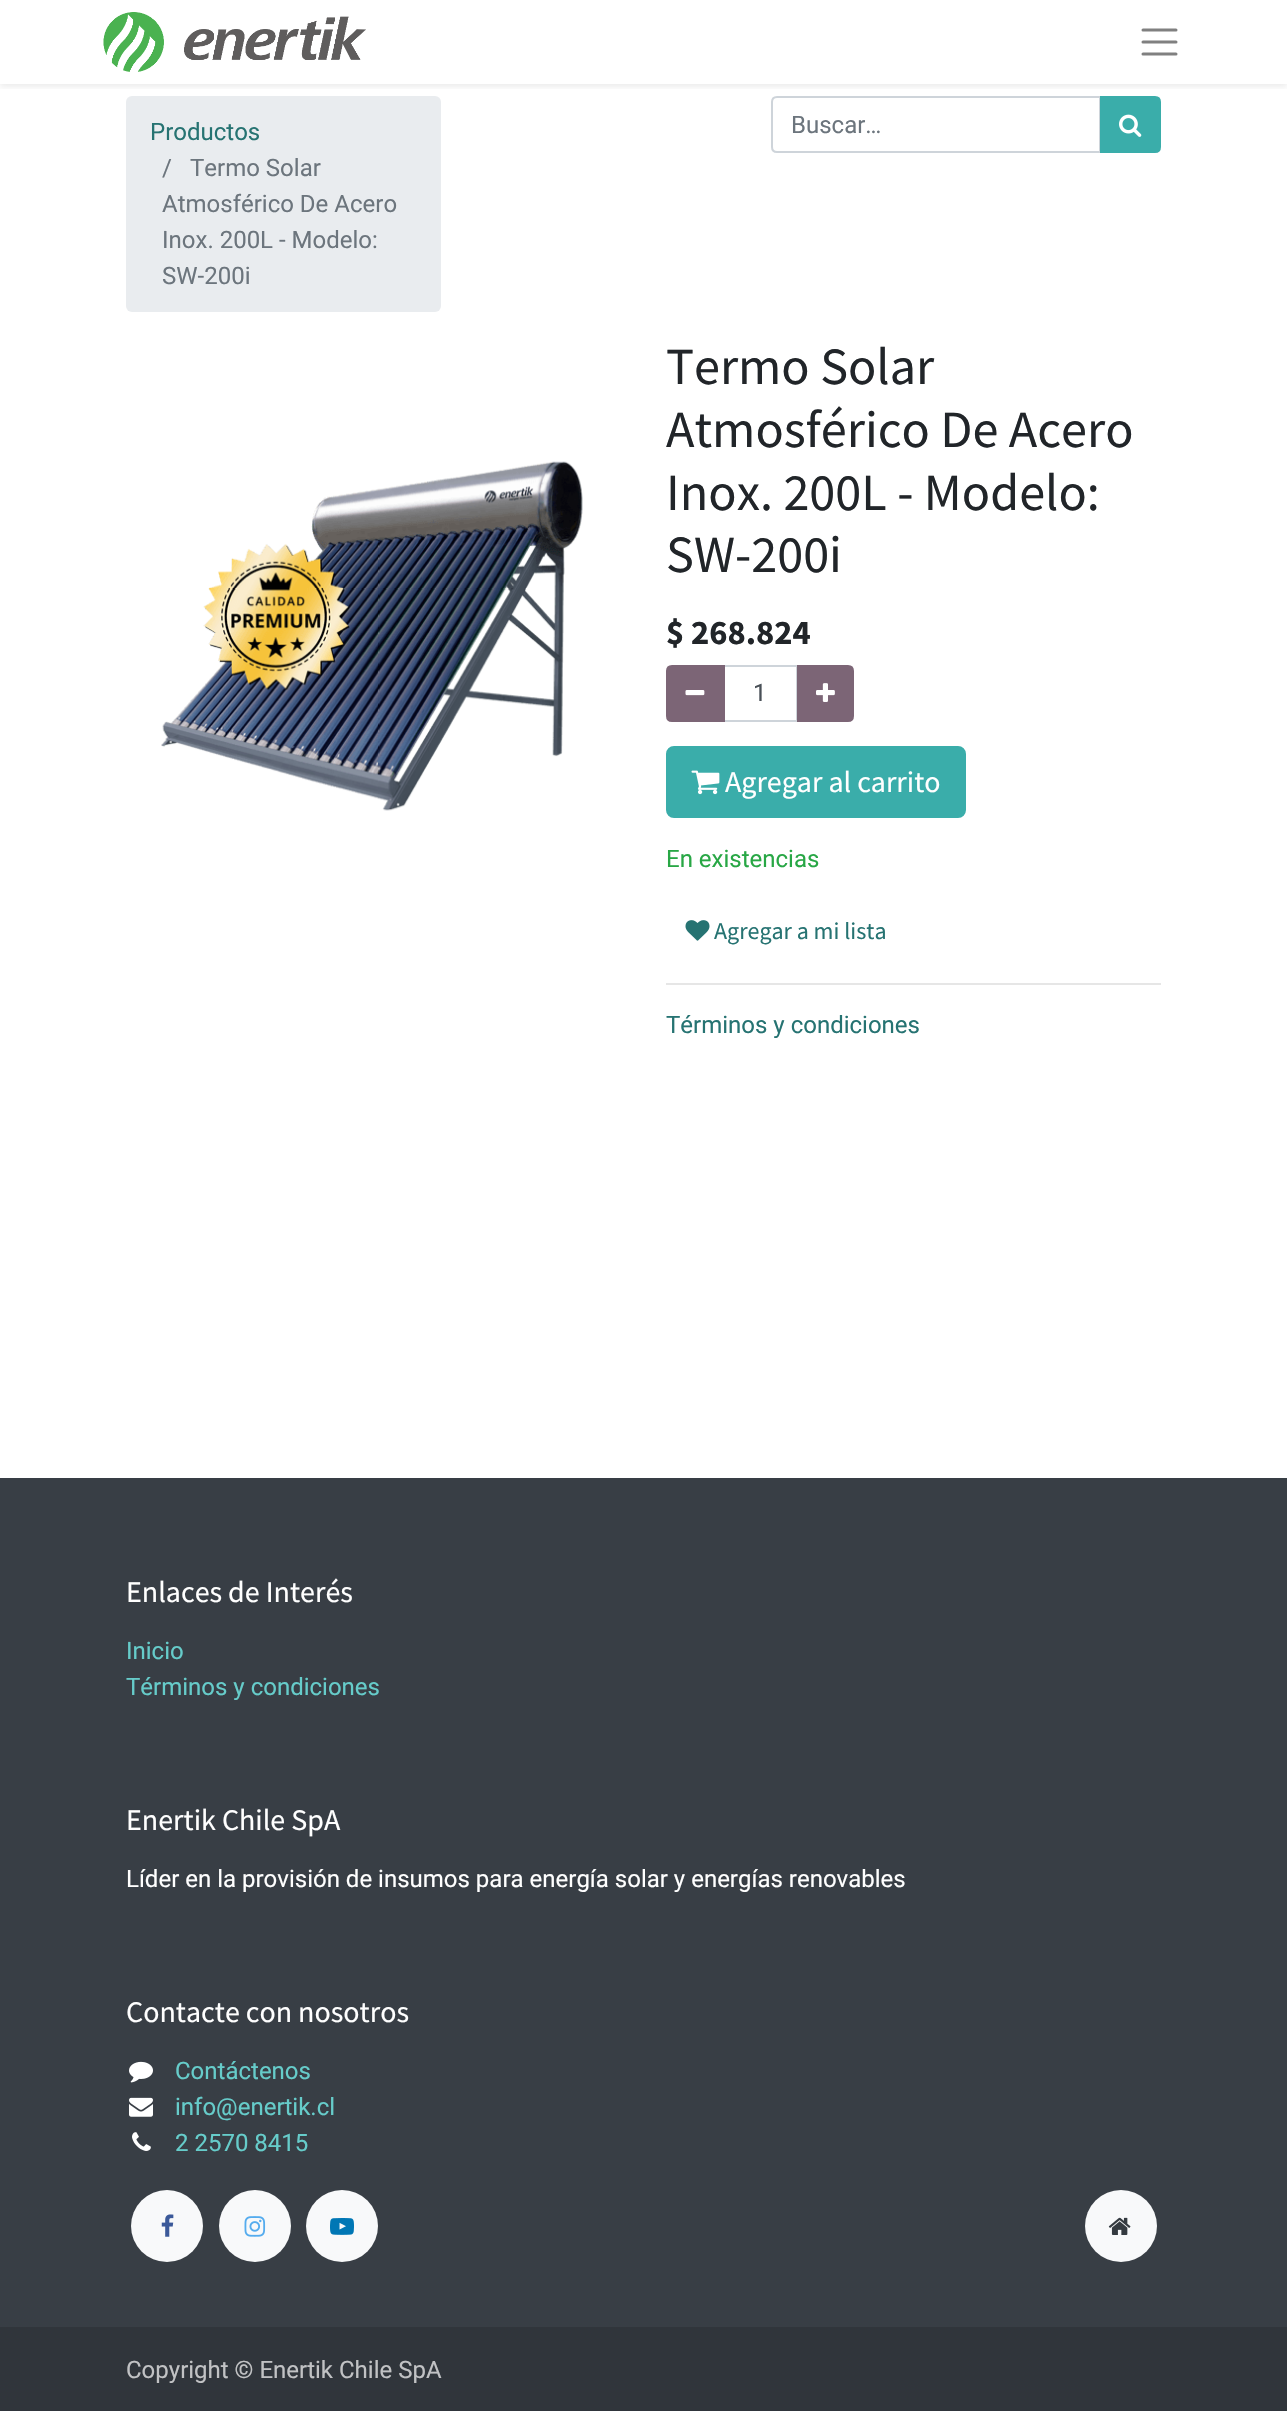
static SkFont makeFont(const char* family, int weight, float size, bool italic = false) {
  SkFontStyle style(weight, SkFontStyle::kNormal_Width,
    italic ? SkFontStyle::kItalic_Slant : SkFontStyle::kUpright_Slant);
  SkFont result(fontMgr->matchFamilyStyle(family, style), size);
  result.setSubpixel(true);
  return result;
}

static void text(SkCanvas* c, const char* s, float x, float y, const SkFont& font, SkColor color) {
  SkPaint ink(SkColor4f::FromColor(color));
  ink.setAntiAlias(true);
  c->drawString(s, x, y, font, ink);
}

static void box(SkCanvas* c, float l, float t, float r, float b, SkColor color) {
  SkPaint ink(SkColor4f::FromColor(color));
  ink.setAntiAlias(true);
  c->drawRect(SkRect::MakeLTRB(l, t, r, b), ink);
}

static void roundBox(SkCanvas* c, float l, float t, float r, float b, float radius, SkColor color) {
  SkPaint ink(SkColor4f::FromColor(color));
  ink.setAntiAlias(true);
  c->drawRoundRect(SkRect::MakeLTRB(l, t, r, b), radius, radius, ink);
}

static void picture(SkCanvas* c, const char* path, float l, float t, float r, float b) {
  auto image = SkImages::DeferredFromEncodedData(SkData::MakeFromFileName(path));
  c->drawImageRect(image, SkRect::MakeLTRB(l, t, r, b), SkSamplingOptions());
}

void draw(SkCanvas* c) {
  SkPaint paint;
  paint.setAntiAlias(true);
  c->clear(0xffffffff);
  roundBox(c, 126, 96, 441, 312, 6, 0xffe9ecef);
  paint.setStyle(SkPaint::kStroke_Style);
  paint.setStrokeWidth(2);
  paint.setColor(0xffced4da);
  c->drawPath(SkPathBuilder().moveTo(777, 97).lineTo(1100, 97).lineTo(1100, 152).lineTo(777, 152).cubicTo(774, 152, 772, 150, 772, 147).lineTo(772, 102).cubicTo(772, 99, 774, 97, 777, 97).close().detach(), paint);
  paint.setStyle(SkPaint::kFill_Style);
  paint.setColor(0xff3aadaa);
  c->drawPath(SkPathBuilder().moveTo(1101, 97).lineTo(1155, 97).cubicTo(1158, 97, 1160, 99, 1160, 102).lineTo(1160, 147).cubicTo(1160, 150, 1158, 152, 1155, 152).lineTo(1101, 152).close().detach(), paint);
  paint.setStyle(SkPaint::kStroke_Style);
  c->drawPath(SkPathBuilder().moveTo(1101, 97).lineTo(1155, 97).cubicTo(1158, 97, 1160, 99, 1160, 102).lineTo(1160, 147).cubicTo(1160, 150, 1158, 152, 1155, 152).lineTo(1101, 152).close().detach(), paint);
  c->save();
  c->clipRect(SkRect::MakeLTRB(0, 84, 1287, 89));
  paint.setStyle(SkPaint::kFill_Style);
  paint.setColor(0x12000000);
  paint.setMaskFilter(SkMaskFilter::MakeBlur(kNormal_SkBlurStyle, 3));
  c->drawRect(SkRect::MakeLTRB(0, 3, 1287, 87), paint);
  paint.setMaskFilter(nullptr);
  c->restore();
  picture(c, "img_01.png", 103, 12, 366, 72);
  paint.setStyle(SkPaint::kStroke_Style);
  paint.setStrokeWidth(3);
  paint.setStrokeCap(SkPaint::kRound_Cap);
  paint.setColor(0xff808080);
  c->drawPath(SkPathBuilder().moveTo(1143, 30).lineTo(1176, 30).moveTo(1143, 42).lineTo(1176, 42).moveTo(1143, 54).lineTo(1176, 54).detach(), paint);
  SkFont face1 = makeFont("Roboto", 400, 24);
  text(c, "Productos", 150, 140, face1, 0xff267372);
  text(c, "/", 162, 176, face1, 0xff6c757d);
  text(c, "Termo Solar", 190, 176, face1, 0xff6c757d);
  text(c, "Atmosférico De Acero", 162, 212, face1, 0xff6c757d);
  text(c, "Inox. 200L - Modelo:", 162, 248, face1, 0xff6c757d);
  text(c, "SW-200i", 162, 284, face1, 0xff6c757d);
  text(c, "Buscar…", 791, 133, face1, 0xff6c757d);
  picture(c, "img_02.png", 1119, 114, 1142, 137);
  picture(c, "img_03.png", 161, 461, 583, 811);
  SkFont face2 = makeFont("Source Sans Pro", 400, 52.25f);
  text(c, "Termo Solar", 666, 384, face2, 0xff212529);
  text(c, "Atmosférico De Acero", 666, 447, face2, 0xff212529);
  text(c, "Inox. 200L - Modelo:", 666, 510, face2, 0xff212529);
  text(c, "SW-200i", 666, 572, face2, 0xff212529);
  SkFont face3 = makeFont("Source Sans Pro", 700, 34.5f);
  text(c, "$ 268.824", 666, 644, face3, 0xff212529);
  paint.setStrokeWidth(2);
  paint.setStrokeCap(SkPaint::kButt_Cap);
  paint.setColor(0xffced4da);
  c->drawRect(SkRect::MakeLTRB(724, 666, 797, 721), paint);
  paint.setStyle(SkPaint::kFill_Style);
  paint.setColor(0xff7c6576);
  c->drawPath(SkPathBuilder().moveTo(672, 666).lineTo(724, 666).lineTo(724, 721).lineTo(672, 721).cubicTo(669, 721, 667, 719, 667, 716).lineTo(667, 671).cubicTo(667, 668, 669, 666, 672, 666).close().detach(), paint);
  paint.setStyle(SkPaint::kStroke_Style);
  c->drawPath(SkPathBuilder().moveTo(672, 666).lineTo(724, 666).lineTo(724, 721).lineTo(672, 721).cubicTo(669, 721, 667, 719, 667, 716).lineTo(667, 671).cubicTo(667, 668, 669, 666, 672, 666).close().detach(), paint);
  picture(c, "img_04.png", 685, 690, 705, 696);
  text(c, "1", 753, 701, face1, 0xff495057);
  paint.setStyle(SkPaint::kFill_Style);
  c->drawPath(SkPathBuilder().moveTo(798, 666).lineTo(848, 666).cubicTo(851, 666, 853, 668, 853, 671).lineTo(853, 716).cubicTo(853, 719, 851, 721, 848, 721).lineTo(798, 721).close().detach(), paint);
  paint.setStyle(SkPaint::kStroke_Style);
  c->drawPath(SkPathBuilder().moveTo(798, 666).lineTo(848, 666).cubicTo(851, 666, 853, 668, 853, 671).lineTo(853, 716).cubicTo(853, 719, 851, 721, 848, 721).lineTo(798, 721).close().detach(), paint);
  picture(c, "img_05.png", 816, 683, 835, 702);
  paint.setStyle(SkPaint::kFill_Style);
  paint.setColor(0xff3aadaa);
  c->drawRoundRect(SkRect::MakeLTRB(667, 747, 965, 817), 7, 7, paint);
  paint.setStyle(SkPaint::kStroke_Style);
  c->drawRoundRect(SkRect::MakeLTRB(667, 747, 965, 817), 7, 7, paint);
  picture(c, "img_06.png", 691, 770, 720, 795);
  SkFont face4 = makeFont("Source Sans Pro", 400, 30);
  text(c, "Agregar al carrito", 725, 792, face4, 0xffffffff);
  text(c, "En existencias", 666, 867, face1, 0xff28a745);
  picture(c, "img_07.png", 685, 920, 710, 941);
  SkFont face5 = makeFont("Source Sans Pro", 400, 24);
  text(c, "Agregar a mi lista", 714, 939, face5, 0xff267372);
  box(c, 666, 983, 1161, 985, 0xffe6e6e6);
  text(c, "Términos y condiciones", 666, 1033, face1, 0xff267372);
  box(c, 0, 1478, 1287, 2327, 0xff383e45);
  text(c, "Enlaces de Interés", 126, 1602, face4, 0xffffffff);
  text(c, "Inicio", 126, 1659, face1, 0xff66ccca);
  text(c, "Términos y condiciones", 126, 1695, face1, 0xff66ccca);
  text(c, "Enertik Chile SpA", 126, 1830, face4, 0xffffffff);
  text(c, "Líder en la provisión de insumos para energía solar y energías renovables", 126, 1887, face1, 0xffffffff);
  text(c, "Contacte con nosotros", 126, 2022, face4, 0xffffffff);
  picture(c, "img_08.png", 129, 2061, 153, 2083);
  text(c, "Contáctenos", 175, 2079, face1, 0xff66ccca);
  picture(c, "img_09.png", 129, 2097, 153, 2117);
  text(c, "info@enertik.cl", 175, 2115, face1, 0xff66ccca);
  picture(c, "img_10.png", 132, 2132, 151, 2151);
  text(c, "2 2570 8415", 175, 2151, face1, 0xff66ccca);
  paint.setStyle(SkPaint::kFill_Style);
  paint.setColor(0xfff8f9fa);
  c->drawCircle(167, 2226, 36, paint);
  picture(c, "img_11.png", 161, 2214, 174, 2237);
  c->drawCircle(255, 2226, 36, paint);
  picture(c, "img_12.png", 244, 2216, 266, 2237);
  c->drawCircle(342, 2226, 36, paint);
  picture(c, "img_13.png", 330, 2218, 354, 2235);
  c->drawCircle(1121, 2226, 36, paint);
  picture(c, "img_14.png", 1108, 2217, 1131, 2235);
  box(c, 0, 2327, 1287, 2411, 0xff30353b);
  text(c, "Copyright © Enertik Chile SpA", 126, 2378, face1, 0xffc1c2c4);
}
